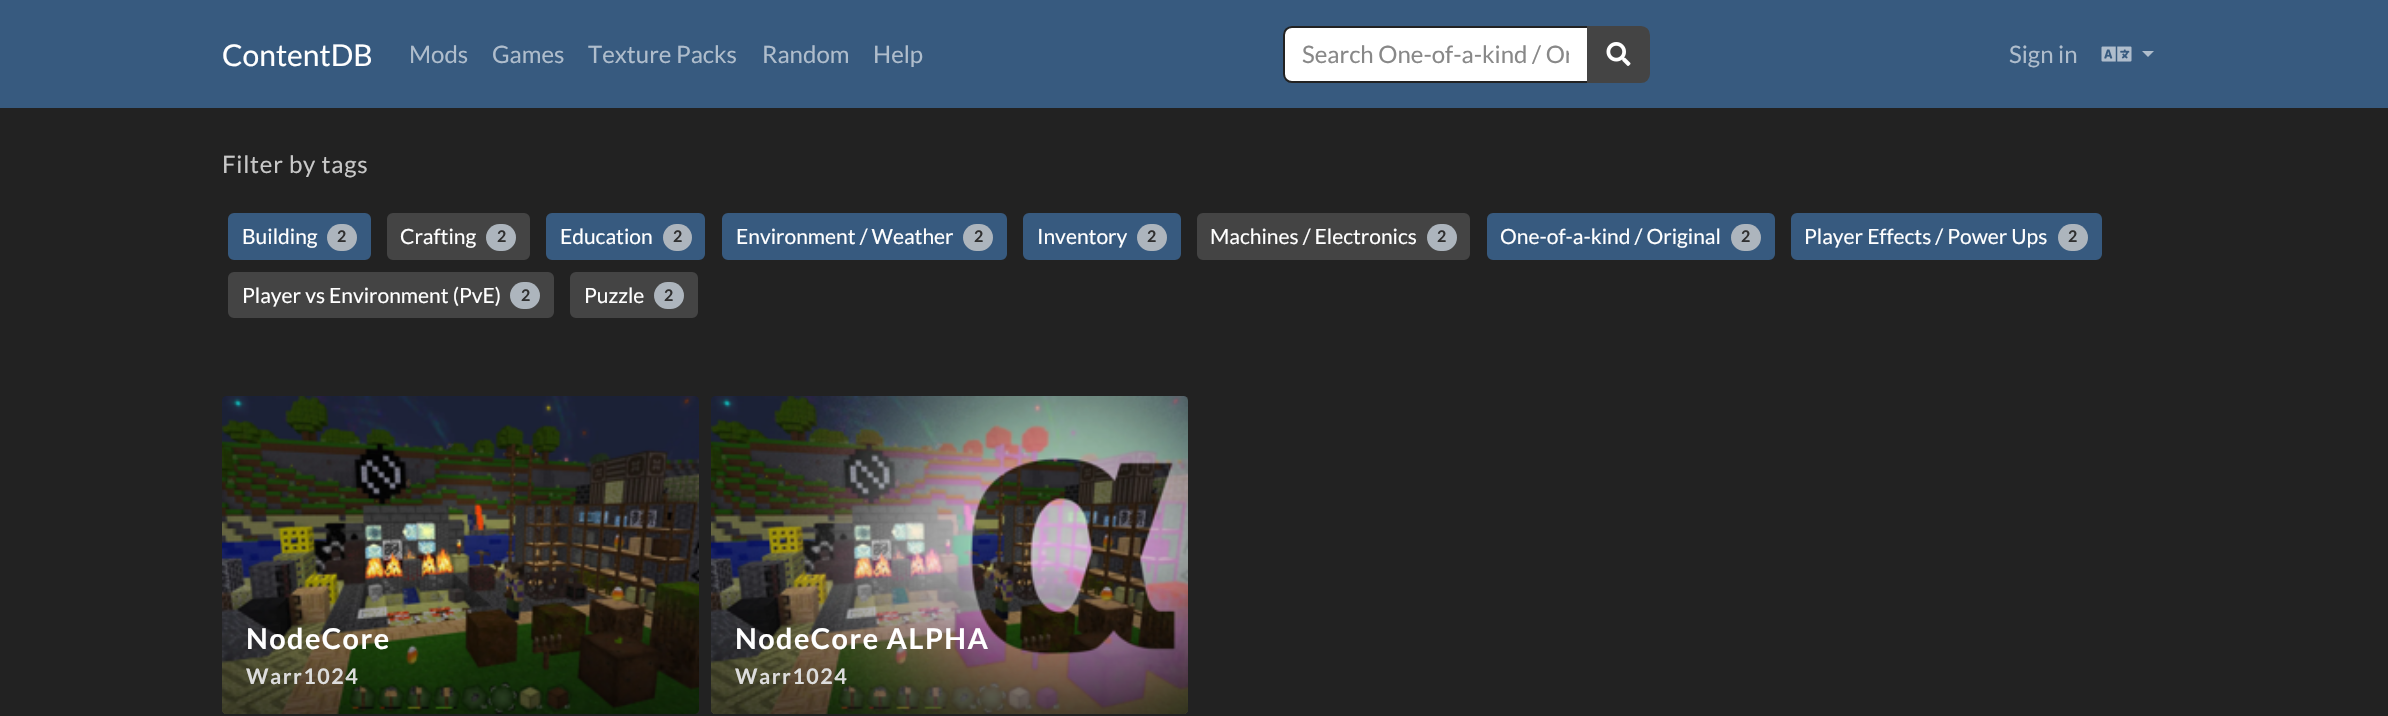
static SkFont makeFont(const char* family, int weight, float size, bool italic = false) {
  SkFontStyle style(weight, SkFontStyle::kNormal_Width,
    italic ? SkFontStyle::kItalic_Slant : SkFontStyle::kUpright_Slant);
  SkFont result(fontMgr->matchFamilyStyle(family, style), size);
  result.setSubpixel(true);
  return result;
}

static void text(SkCanvas* c, const char* s, float x, float y, const SkFont& font, SkColor color) {
  SkPaint ink(SkColor4f::FromColor(color));
  ink.setAntiAlias(true);
  c->drawString(s, x, y, font, ink);
}

static void spacedText(SkCanvas* c, const char* s, float x, float y, const SkFont& font, const SkPaint& ink, float letter, float word) {
  std::vector<SkGlyphID> glyphs(font.countText(s, strlen(s), SkTextEncoding::kUTF8));
  std::vector<float> xs(glyphs.size());
  font.textToGlyphs(s, strlen(s), SkTextEncoding::kUTF8, glyphs);
  font.getXPos(glyphs, xs, x);
  float extra = 0;
  for (size_t i = 0; i < glyphs.size(); i++) {
    xs[i] += extra;
    extra += letter + word * (glyphs[i] == font.unicharToGlyph(' '));
  }
  c->drawTextBlob(SkTextBlob::MakeFromPosHGlyphs(glyphs, xs, y, font), 0, 0, ink);
}

static void box(SkCanvas* c, float l, float t, float r, float b, SkColor color) {
  SkPaint ink(SkColor4f::FromColor(color));
  ink.setAntiAlias(true);
  c->drawRect(SkRect::MakeLTRB(l, t, r, b), ink);
}

static void roundBox(SkCanvas* c, float l, float t, float r, float b, float radius, SkColor color) {
  SkPaint ink(SkColor4f::FromColor(color));
  ink.setAntiAlias(true);
  c->drawRoundRect(SkRect::MakeLTRB(l, t, r, b), radius, radius, ink);
}

static void picture(SkCanvas* c, const char* path, float l, float t, float r, float b) {
  auto image = SkImages::DeferredFromEncodedData(SkData::MakeFromFileName(path));
  c->drawImageRect(image, SkRect::MakeLTRB(l, t, r, b), SkSamplingOptions());
}

void draw(SkCanvas* c) {
  SkPaint paint;
  paint.setAntiAlias(true);
  c->clear(0xff222222);
  box(c, 0, 0, 2388, 108, 0xff375a7f);
  SkFont face1 = makeFont("Lato", 400, 30);
  text(c, "ContentDB", 222, 66, face1, 0xffffffff);
  SkFont face2 = makeFont("Lato", 400, 24);
  text(c, "Mods", 409, 63, face2, 0xffafbdcc);
  text(c, "Games", 492, 63, face2, 0xffafbdcc);
  text(c, "Texture Packs", 588, 63, face2, 0xffafbdcc);
  text(c, "Random", 762, 63, face2, 0xffafbdcc);
  text(c, "Help", 873, 63, face2, 0xffafbdcc);
  paint.setColor(0xffffffff);
  c->drawPath(SkPathBuilder().moveTo(1292, 27).lineTo(1588, 27).lineTo(1588, 82).lineTo(1292, 82).cubicTo(1287.5f, 82, 1284, 78.5f, 1284, 74).lineTo(1284, 35).cubicTo(1284, 30.5f, 1287.5f, 27, 1292, 27).close().detach(), paint);
  paint.setStyle(SkPaint::kStroke_Style);
  paint.setStrokeWidth(2);
  paint.setColor(0xff222222);
  c->drawPath(SkPathBuilder().moveTo(1292, 27).lineTo(1588, 27).lineTo(1588, 82).lineTo(1292, 82).cubicTo(1287.5f, 82, 1284, 78.5f, 1284, 74).lineTo(1284, 35).cubicTo(1284, 30.5f, 1287.5f, 27, 1292, 27).close().detach(), paint);
  c->save();
  c->clipRect(SkRect::MakeLTRB(1302, 39, 1569, 68));
  text(c, "Search One-of-a-kind / Or", 1302, 63, face2, 0xff888888);
  c->restore();
  paint.setStyle(SkPaint::kFill_Style);
  paint.setColor(0xff444444);
  c->drawPath(SkPathBuilder().moveTo(1588, 27).lineTo(1641, 27).cubicTo(1645.5f, 27, 1649, 30.5f, 1649, 35).lineTo(1649, 74).cubicTo(1649, 78.5f, 1645.5f, 82, 1641, 82).lineTo(1588, 82).close().detach(), paint);
  paint.setStyle(SkPaint::kStroke_Style);
  c->drawPath(SkPathBuilder().moveTo(1588, 27).lineTo(1641, 27).cubicTo(1645.5f, 27, 1649, 30.5f, 1649, 35).lineTo(1649, 74).cubicTo(1649, 78.5f, 1645.5f, 82, 1641, 82).lineTo(1588, 82).close().detach(), paint);
  picture(c, "img_01.png", 1606, 42, 1631, 66);
  text(c, "Sign in", 2009, 63, face2, 0xffafbdcc);
  picture(c, "img_02.png", 2101, 46, 2132, 62);
  paint.setStyle(SkPaint::kFill_Style);
  paint.setColor(0xffafbdcc);
  c->drawPath(SkPathBuilder().moveTo(2142, 51).lineTo(2154, 51).lineTo(2148, 57).close().detach(), paint);
  paint.setColor(0xffc8c8c8);
  spacedText(c, "Filter by tags", 222, 173, face2, paint, 0.75f, 0);
  paint.setColor(0xff375a7f);
  c->drawRoundRect(SkRect::MakeLTRB(229, 214, 370, 259), 5, 5, paint);
  paint.setStyle(SkPaint::kStroke_Style);
  c->drawRoundRect(SkRect::MakeLTRB(229, 214, 370, 259), 5, 5, paint);
  SkFont face3 = makeFont("Lato", 400, 21);
  text(c, "Building", 242, 244, face3, 0xffffffff);
  roundBox(c, 327, 224, 357, 251, 13.5f, 0xffadb5bd);
  SkFont face4 = makeFont("Lato", 700, 16);
  text(c, "2", 337, 242, face4, 0xff303030);
  paint.setStyle(SkPaint::kFill_Style);
  paint.setColor(0xff444444);
  c->drawRoundRect(SkRect::MakeLTRB(388, 214, 529, 259), 5, 5, paint);
  paint.setStyle(SkPaint::kStroke_Style);
  c->drawRoundRect(SkRect::MakeLTRB(388, 214, 529, 259), 5, 5, paint);
  text(c, "Crafting", 400, 244, face3, 0xffffffff);
  roundBox(c, 486, 224, 516, 251, 13.5f, 0xffadb5bd);
  text(c, "2", 497, 242, face4, 0xff303030);
  paint.setStyle(SkPaint::kFill_Style);
  paint.setColor(0xff375a7f);
  c->drawRoundRect(SkRect::MakeLTRB(547, 214, 704, 259), 5, 5, paint);
  paint.setStyle(SkPaint::kStroke_Style);
  c->drawRoundRect(SkRect::MakeLTRB(547, 214, 704, 259), 5, 5, paint);
  text(c, "Education", 560, 244, face3, 0xffffffff);
  roundBox(c, 663, 224, 692, 251, 13.5f, 0xffadb5bd);
  text(c, "2", 673, 242, face4, 0xff303030);
  paint.setStyle(SkPaint::kFill_Style);
  c->drawRoundRect(SkRect::MakeLTRB(723, 214, 1006, 259), 5, 5, paint);
  paint.setStyle(SkPaint::kStroke_Style);
  c->drawRoundRect(SkRect::MakeLTRB(723, 214, 1006, 259), 5, 5, paint);
  text(c, "Environment / Weather", 736, 244, face3, 0xffffffff);
  roundBox(c, 963, 224, 993, 251, 13.5f, 0xffadb5bd);
  text(c, "2", 974, 242, face4, 0xff303030);
  paint.setStyle(SkPaint::kFill_Style);
  c->drawRoundRect(SkRect::MakeLTRB(1024, 214, 1180, 259), 5, 5, paint);
  paint.setStyle(SkPaint::kStroke_Style);
  c->drawRoundRect(SkRect::MakeLTRB(1024, 214, 1180, 259), 5, 5, paint);
  text(c, "Inventory", 1037, 244, face3, 0xffffffff);
  roundBox(c, 1137, 224, 1167, 251, 13.5f, 0xffadb5bd);
  text(c, "2", 1147, 242, face4, 0xff303030);
  paint.setStyle(SkPaint::kFill_Style);
  paint.setColor(0xff444444);
  c->drawRoundRect(SkRect::MakeLTRB(1198, 214, 1469, 259), 5, 5, paint);
  paint.setStyle(SkPaint::kStroke_Style);
  c->drawRoundRect(SkRect::MakeLTRB(1198, 214, 1469, 259), 5, 5, paint);
  text(c, "Machines / Electronics", 1210, 244, face3, 0xffffffff);
  roundBox(c, 1427, 224, 1457, 251, 13.5f, 0xffadb5bd);
  text(c, "2", 1437, 242, face4, 0xff303030);
  paint.setStyle(SkPaint::kFill_Style);
  paint.setColor(0xff375a7f);
  c->drawRoundRect(SkRect::MakeLTRB(1488, 214, 1774, 259), 5, 5, paint);
  paint.setStyle(SkPaint::kStroke_Style);
  c->drawRoundRect(SkRect::MakeLTRB(1488, 214, 1774, 259), 5, 5, paint);
  text(c, "One-of-a-kind / Original", 1500, 244, face3, 0xffffffff);
  roundBox(c, 1731, 224, 1761, 251, 13.5f, 0xffadb5bd);
  text(c, "2", 1741, 242, face4, 0xff303030);
  paint.setStyle(SkPaint::kFill_Style);
  c->drawRoundRect(SkRect::MakeLTRB(1792, 214, 2101, 259), 5, 5, paint);
  paint.setStyle(SkPaint::kStroke_Style);
  c->drawRoundRect(SkRect::MakeLTRB(1792, 214, 2101, 259), 5, 5, paint);
  text(c, "Player Effects / Power Ups", 1804, 244, face3, 0xffffffff);
  roundBox(c, 2058, 224, 2088, 251, 13.5f, 0xffadb5bd);
  text(c, "2", 2068, 242, face4, 0xff303030);
  paint.setStyle(SkPaint::kFill_Style);
  paint.setColor(0xff444444);
  c->drawRoundRect(SkRect::MakeLTRB(229, 273, 553, 317), 5, 5, paint);
  paint.setStyle(SkPaint::kStroke_Style);
  c->drawRoundRect(SkRect::MakeLTRB(229, 273, 553, 317), 5, 5, paint);
  text(c, "Player vs Environment (PvE)", 242, 303, face3, 0xffffffff);
  roundBox(c, 510, 282, 540, 309, 13.5f, 0xffadb5bd);
  text(c, "2", 521, 301, face4, 0xff303030);
  paint.setStyle(SkPaint::kFill_Style);
  c->drawRoundRect(SkRect::MakeLTRB(571, 273, 697, 317), 5, 5, paint);
  paint.setStyle(SkPaint::kStroke_Style);
  c->drawRoundRect(SkRect::MakeLTRB(571, 273, 697, 317), 5, 5, paint);
  text(c, "Puzzle", 584, 303, face3, 0xffffffff);
  roundBox(c, 654, 282, 684, 309, 13.5f, 0xffadb5bd);
  text(c, "2", 664, 301, face4, 0xff303030);
  picture(c, "img_03.png", 222, 396, 699, 714);
  paint.setStyle(SkPaint::kFill_Style);
  {
    const SkColor colors[] = {0x00000000, 0x80000000};
    const float stops[] = {0, 1};
    const SkPoint ends[] = {{461, 555}, {461, 714}};
    paint.setShader(SkGradientShader::MakeLinear(ends, colors, stops, 2, SkTileMode::kClamp));
    paint.setAlpha(255);
  }
  c->drawPath(SkPathBuilder().moveTo(222, 555).lineTo(699, 555).lineTo(699, 709).cubicTo(699, 712, 697, 714, 694, 714).lineTo(227, 714).cubicTo(224, 714, 222, 712, 222, 709).close().detach(), paint);
  SkFont face5 = makeFont("Lato", 700, 28.75f);
  paint.setShader(nullptr);
  paint.setColor(0xffffffff);
  spacedText(c, "NodeCore", 246, 649, face5, paint, 1.5f, 0);
  SkFont face6 = makeFont("Lato", 700, 21.5f);
  paint.setColor(0xffdddddd);
  spacedText(c, "Warr1024", 246, 684, face6, paint, 1.5f, 0);
  picture(c, "img_04.png", 711, 396, 1188, 714);
  {
    const SkColor colors[] = {0x00000000, 0x80000000};
    const float stops[] = {0, 1};
    const SkPoint ends[] = {{950, 555}, {950, 714}};
    paint.setShader(SkGradientShader::MakeLinear(ends, colors, stops, 2, SkTileMode::kClamp));
    paint.setAlpha(255);
  }
  c->drawPath(SkPathBuilder().moveTo(711, 555).lineTo(1188, 555).lineTo(1188, 709).cubicTo(1188, 712, 1186, 714, 1183, 714).lineTo(716, 714).cubicTo(713, 714, 711, 712, 711, 709).close().detach(), paint);
  paint.setShader(nullptr);
  paint.setColor(0xffffffff);
  spacedText(c, "NodeCore ALPHA", 735, 649, face5, paint, 1.5f, 0);
  paint.setColor(0xffdddddd);
  spacedText(c, "Warr1024", 735, 684, face6, paint, 1.5f, 0);
}
